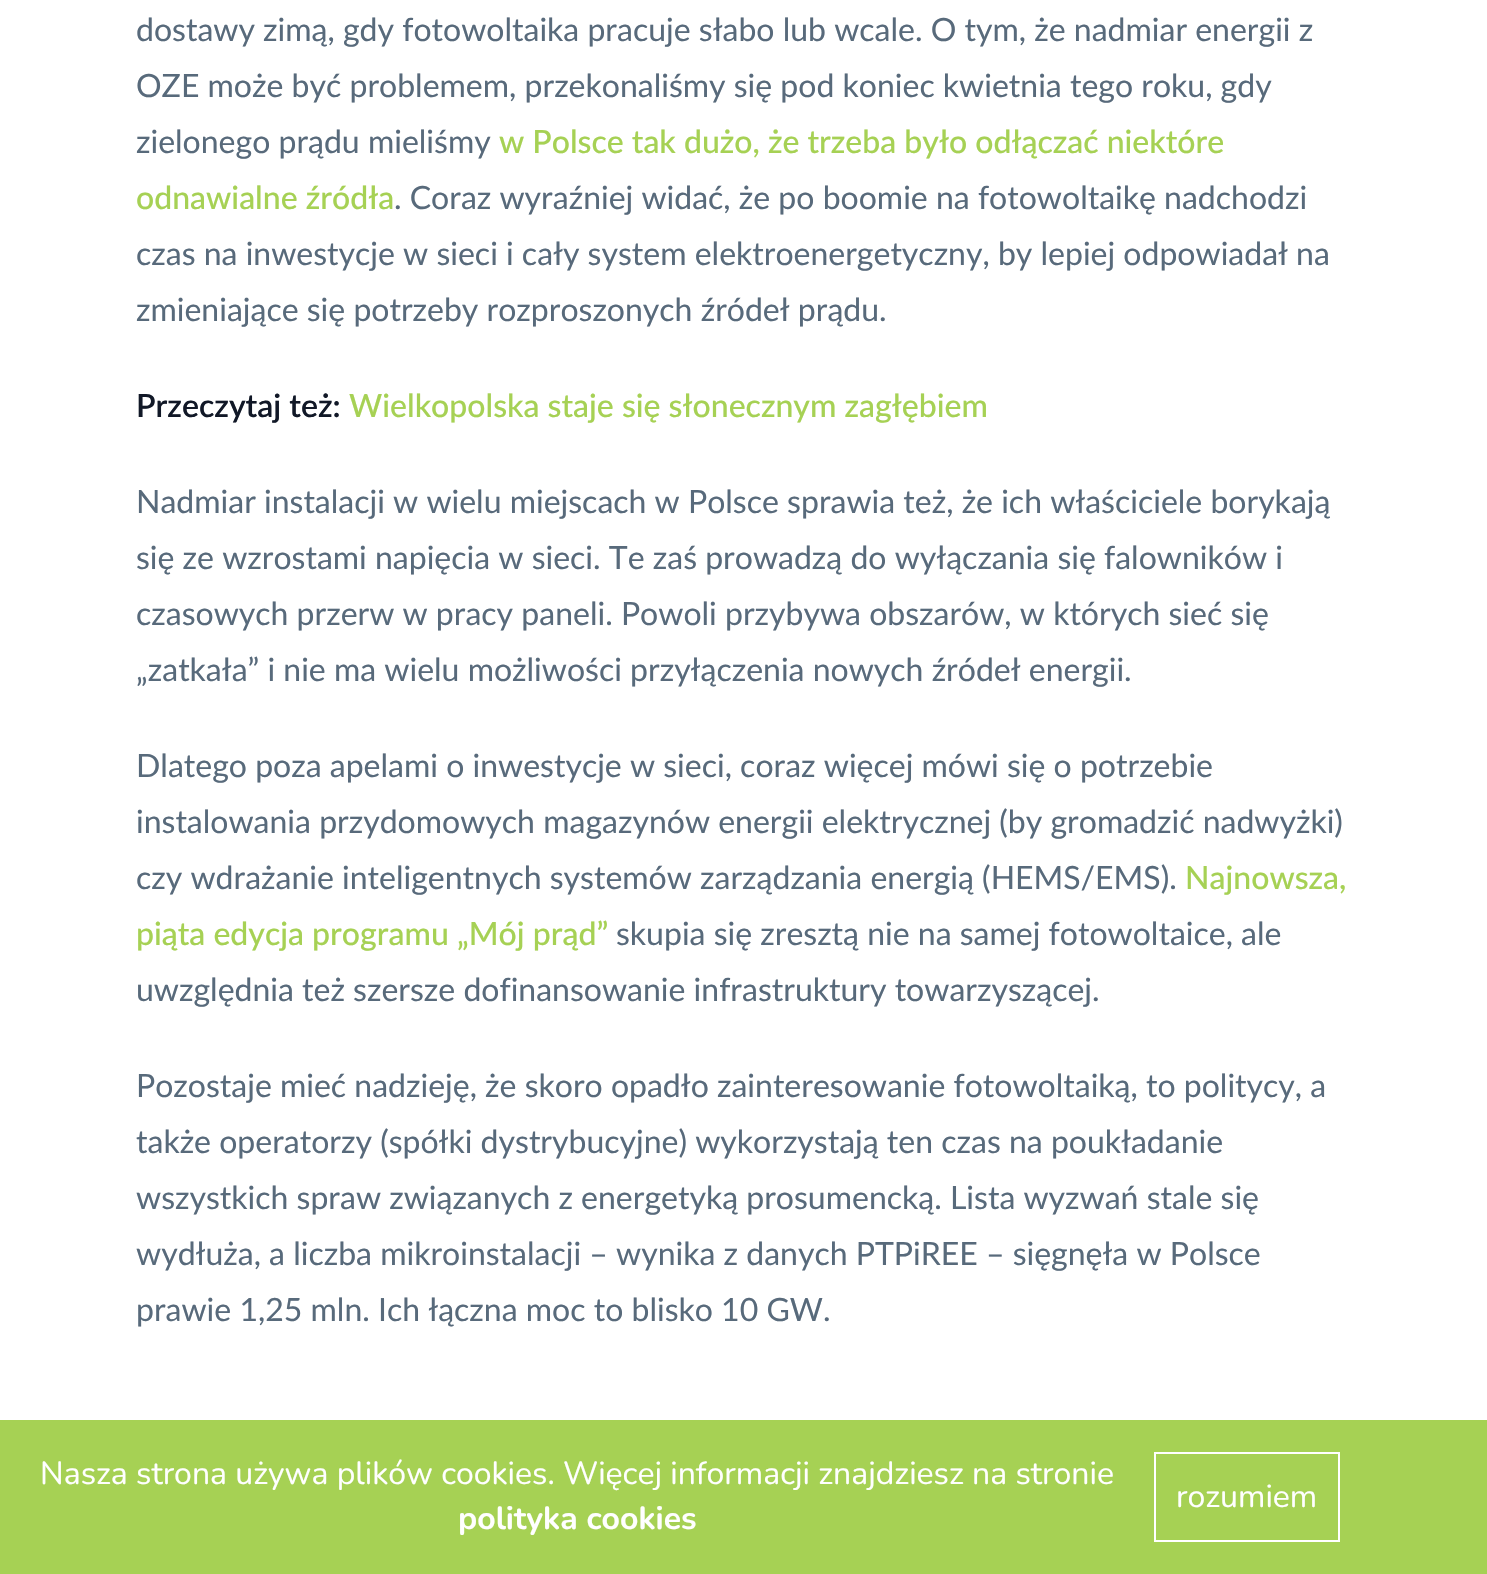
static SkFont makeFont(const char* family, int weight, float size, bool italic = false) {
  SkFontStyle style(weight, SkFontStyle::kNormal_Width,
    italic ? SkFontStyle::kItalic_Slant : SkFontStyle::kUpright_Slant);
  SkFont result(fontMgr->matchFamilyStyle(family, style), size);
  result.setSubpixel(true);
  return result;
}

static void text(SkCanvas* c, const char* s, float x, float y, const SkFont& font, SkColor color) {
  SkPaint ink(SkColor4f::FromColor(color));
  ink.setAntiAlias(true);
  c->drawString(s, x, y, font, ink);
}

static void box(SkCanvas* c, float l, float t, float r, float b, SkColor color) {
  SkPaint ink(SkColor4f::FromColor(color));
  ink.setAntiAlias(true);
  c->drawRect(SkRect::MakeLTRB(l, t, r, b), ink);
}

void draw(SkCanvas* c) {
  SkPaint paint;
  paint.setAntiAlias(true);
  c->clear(0xffffffff);
  SkFont face1 = makeFont("Lato", 400, 32);
  text(c, "dostawy zimą, gdy fotowoltaika pracuje słabo lub wcale. O tym, że nadmiar energii z", 136, 41, face1, 0xff586a7b);
  text(c, "OZE może być problemem, przekonaliśmy się pod koniec kwietnia tego roku, gdy", 136, 97, face1, 0xff586a7b);
  text(c, "zielonego prądu mieliśmy", 136, 153, face1, 0xff586a7b);
  SkFont face2 = makeFont("Lato", 500, 32);
  text(c, "w Polsce tak dużo, że trzeba było odłączać niektóre", 499, 153, face2, 0xffa6d154);
  text(c, "odnawialne źródła", 136, 209, face2, 0xffa6d154);
  text(c, ". Coraz wyraźniej widać, że po boomie na fotowoltaikę nadchodzi", 394, 209, face1, 0xff586a7b);
  text(c, "czas na inwestycje w sieci i cały system elektroenergetyczny, by lepiej odpowiadał na", 136, 265, face1, 0xff586a7b);
  text(c, "zmieniające się potrzeby rozproszonych źródeł prądu.", 136, 321, face1, 0xff586a7b);
  SkFont face3 = makeFont("Lato", 600, 32);
  text(c, "Przeczytaj też:", 136, 417, face3, 0xff111827);
  text(c, "Wielkopolska staje się słonecznym zagłębiem", 349, 417, face2, 0xffa6d154);
  text(c, "Nadmiar instalacji w wielu miejscach w Polsce sprawia też, że ich właściciele borykają", 136, 513, face1, 0xff586a7b);
  text(c, "się ze wzrostami napięcia w sieci. Te zaś prowadzą do wyłączania się falowników i", 136, 569, face1, 0xff586a7b);
  text(c, "czasowych przerw w pracy paneli. Powoli przybywa obszarów, w których sieć się", 136, 625, face1, 0xff586a7b);
  text(c, "„zatkała” i nie ma wielu możliwości przyłączenia nowych źródeł energii.", 136, 681, face1, 0xff586a7b);
  text(c, "Dlatego poza apelami o inwestycje w sieci, coraz więcej mówi się o potrzebie", 136, 777, face1, 0xff586a7b);
  text(c, "instalowania przydomowych magazynów energii elektrycznej (by gromadzić nadwyżki)", 136, 833, face1, 0xff586a7b);
  text(c, "czy wdrażanie inteligentnych systemów zarządzania energią (HEMS/EMS).", 136, 889, face1, 0xff586a7b);
  text(c, "Najnowsza,", 1185, 889, face2, 0xffa6d154);
  text(c, "piąta edycja programu „Mój prąd”", 136, 945, face2, 0xffa6d154);
  text(c, "skupia się zresztą nie na samej fotowoltaice, ale", 616, 945, face1, 0xff586a7b);
  text(c, "uwzględnia też szersze dofinansowanie infrastruktury towarzyszącej.", 136, 1001, face1, 0xff586a7b);
  text(c, "Pozostaje mieć nadzieję, że skoro opadło zainteresowanie fotowoltaiką, to politycy, a", 136, 1097, face1, 0xff586a7b);
  text(c, "także operatorzy (spółki dystrybucyjne) wykorzystają ten czas na poukładanie", 136, 1153, face1, 0xff586a7b);
  text(c, "wszystkich spraw związanych z energetyką prosumencką. Lista wyzwań stale się", 136, 1209, face1, 0xff586a7b);
  text(c, "wydłuża, a liczba mikroinstalacji – wynika z danych PTPiREE – sięgnęła w Polsce", 136, 1265, face1, 0xff586a7b);
  text(c, "prawie 1,25 mln. Ich łączna moc to blisko 10 GW.", 136, 1321, face1, 0xff586a7b);
  box(c, 0, 1420, 1487, 1574, 0xffa6d154);
  SkFont face4 = makeFont("Nunito", 200, 32);
  text(c, "Nasza strona używa plików cookies. Więcej informacji znajdziesz na stronie", 40, 1484, face4, 0xffffffff);
  SkFont face5 = makeFont("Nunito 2", 200, 32);
  text(c, "polityka cookies", 458, 1529, face5, 0xffffffff);
  paint.setStyle(SkPaint::kStroke_Style);
  paint.setStrokeWidth(2);
  paint.setColor(0xffffffff);
  c->drawRect(SkRect::MakeLTRB(1155, 1453, 1339, 1541), paint);
  text(c, "rozumiem", 1176, 1507, face4, 0xffffffff);
}
